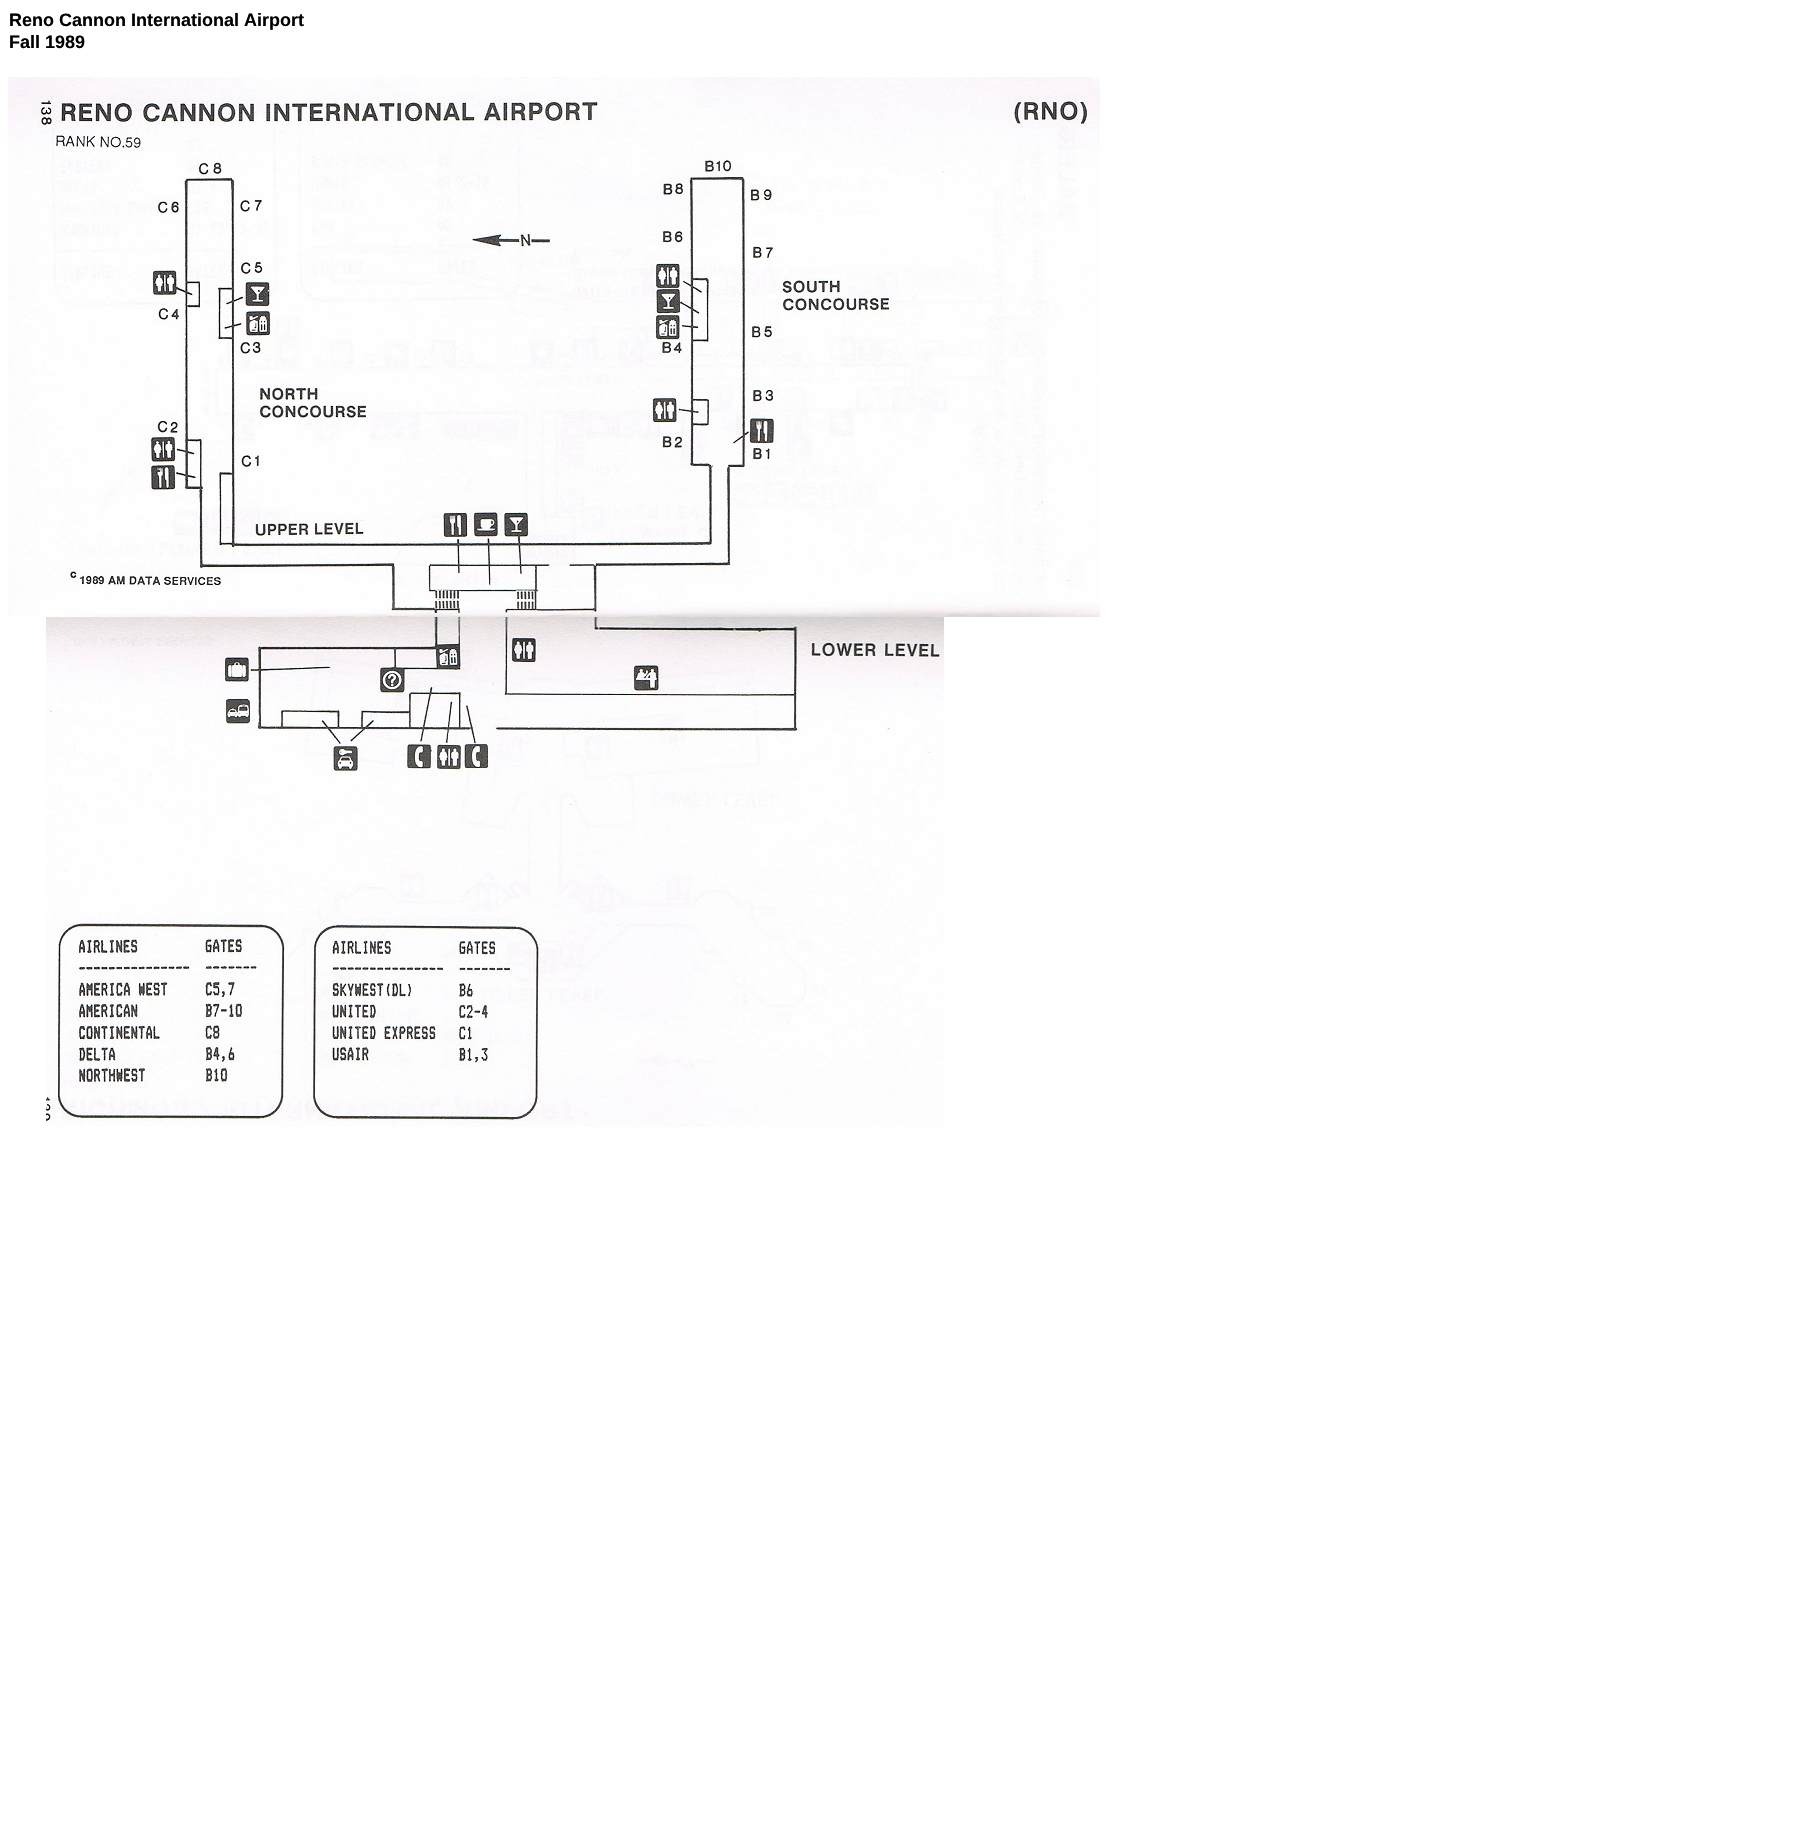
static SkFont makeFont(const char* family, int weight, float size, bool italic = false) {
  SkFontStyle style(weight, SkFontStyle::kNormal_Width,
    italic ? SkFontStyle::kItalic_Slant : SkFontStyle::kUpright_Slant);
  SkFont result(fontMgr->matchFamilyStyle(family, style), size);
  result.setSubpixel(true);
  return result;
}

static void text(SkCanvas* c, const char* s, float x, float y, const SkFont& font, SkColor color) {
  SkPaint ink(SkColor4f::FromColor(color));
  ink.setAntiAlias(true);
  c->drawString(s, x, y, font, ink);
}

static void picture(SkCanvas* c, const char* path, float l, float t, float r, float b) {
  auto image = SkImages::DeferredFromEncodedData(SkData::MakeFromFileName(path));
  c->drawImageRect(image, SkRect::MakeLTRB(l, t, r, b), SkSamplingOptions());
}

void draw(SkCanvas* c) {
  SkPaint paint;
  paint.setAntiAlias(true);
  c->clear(0xffffffff);
  SkFont face1 = makeFont("Liberation Sans", 700, 18);
  text(c, "Reno Cannon International Airport", 9, 26, face1, 0xff000000);
  text(c, "Fall 1989", 9, 48, face1, 0xff000000);
  picture(c, "img_01.png", 8, 77, 1100, 617);
  picture(c, "img_02.png", 46, 617, 944, 1127);
}
